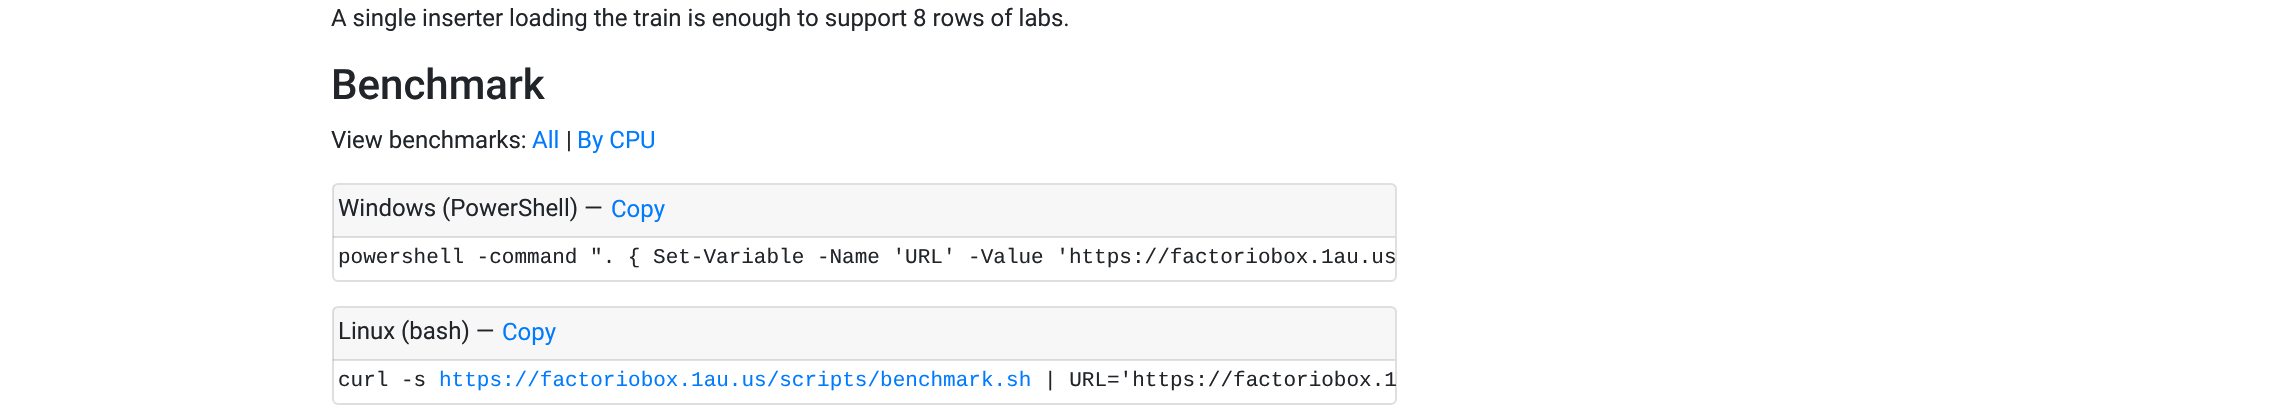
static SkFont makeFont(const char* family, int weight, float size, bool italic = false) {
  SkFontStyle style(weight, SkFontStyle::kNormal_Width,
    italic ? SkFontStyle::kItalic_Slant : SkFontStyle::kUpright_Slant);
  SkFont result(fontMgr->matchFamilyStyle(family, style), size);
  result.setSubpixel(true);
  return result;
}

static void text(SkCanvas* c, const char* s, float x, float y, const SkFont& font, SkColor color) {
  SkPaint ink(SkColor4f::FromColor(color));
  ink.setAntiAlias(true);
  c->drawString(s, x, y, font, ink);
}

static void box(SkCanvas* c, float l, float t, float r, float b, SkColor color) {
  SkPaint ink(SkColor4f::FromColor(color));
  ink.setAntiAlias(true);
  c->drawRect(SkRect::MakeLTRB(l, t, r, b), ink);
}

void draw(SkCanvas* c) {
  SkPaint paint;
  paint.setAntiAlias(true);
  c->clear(0xffffffff);
  SkFont face1 = makeFont("Roboto", 400, 24);
  text(c, "A single inserter loading the train is enough to support 8 rows of labs.", 331, 26, face1, 0xff212529);
  SkFont face2 = makeFont("Roboto", 500, 42);
  text(c, "Benchmark", 331, 99, face2, 0xff212529);
  text(c, "View benchmarks:", 331, 148, face1, 0xff212529);
  text(c, "All", 532, 148, face1, 0xff007bff);
  text(c, "|", 566, 148, face1, 0xff212529);
  text(c, "By CPU", 577, 148, face1, 0xff007bff);
  paint.setStyle(SkPaint::kStroke_Style);
  paint.setStrokeWidth(2);
  paint.setColor(0xffdfdfdf);
  c->drawRoundRect(SkRect::MakeLTRB(333, 184, 1396, 281), 5, 5, paint);
  box(c, 333, 185, 1395, 237, 0x08000000);
  box(c, 333, 236, 1395, 238, 0x1f000000);
  text(c, "Windows (PowerShell) —", 338, 216, face1, 0xff212529);
  text(c, "Copy", 611, 217, face1, 0xff007bff);
  SkFont face3 = makeFont("Liberation Mono", 400, 21);
  text(c, "powershell -command \". { Set-Variable -Name 'URL' -Value 'https://factoriobox.1au.us", 338, 263, face3, 0xff212529);
  c->drawRoundRect(SkRect::MakeLTRB(333, 307, 1396, 404), 5, 5, paint);
  box(c, 333, 308, 1395, 360, 0x08000000);
  box(c, 333, 359, 1395, 361, 0x1f000000);
  text(c, "Linux (bash) —", 338, 339, face1, 0xff212529);
  text(c, "Copy", 502, 340, face1, 0xff007bff);
  text(c, "curl -s", 338, 386, face3, 0xff212529);
  text(c, "https://factoriobox.1au.us/scripts/benchmark.sh", 439, 386, face3, 0xff007bff);
  text(c, "| URL='https://factoriobox.1", 1044, 386, face3, 0xff212529);
}
